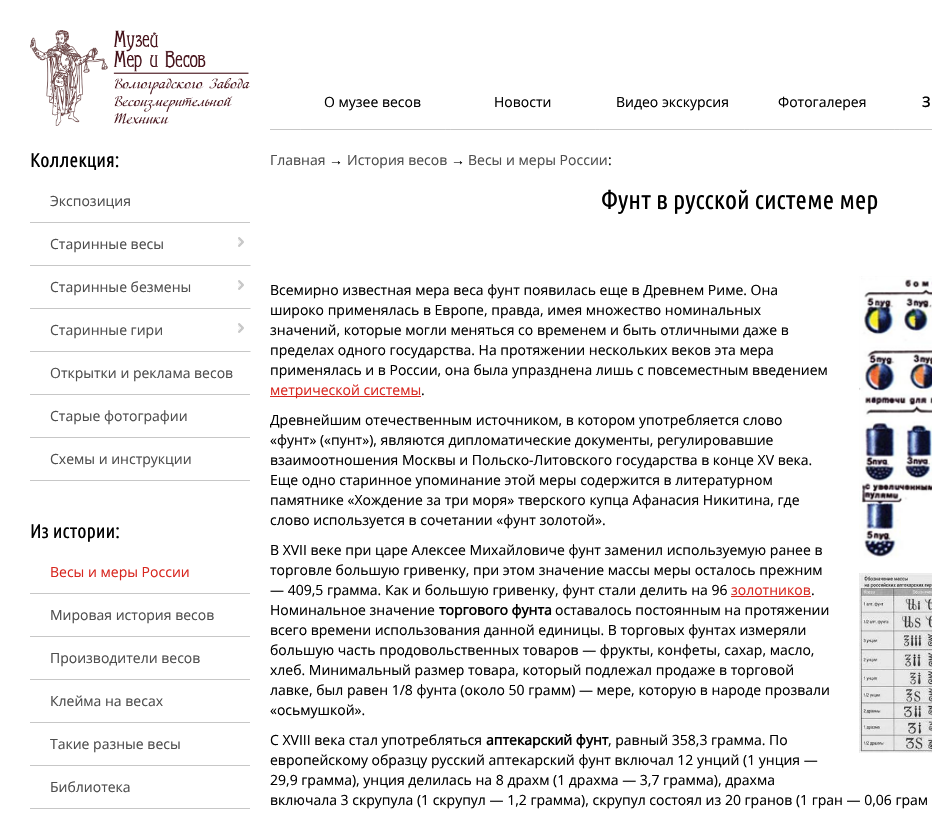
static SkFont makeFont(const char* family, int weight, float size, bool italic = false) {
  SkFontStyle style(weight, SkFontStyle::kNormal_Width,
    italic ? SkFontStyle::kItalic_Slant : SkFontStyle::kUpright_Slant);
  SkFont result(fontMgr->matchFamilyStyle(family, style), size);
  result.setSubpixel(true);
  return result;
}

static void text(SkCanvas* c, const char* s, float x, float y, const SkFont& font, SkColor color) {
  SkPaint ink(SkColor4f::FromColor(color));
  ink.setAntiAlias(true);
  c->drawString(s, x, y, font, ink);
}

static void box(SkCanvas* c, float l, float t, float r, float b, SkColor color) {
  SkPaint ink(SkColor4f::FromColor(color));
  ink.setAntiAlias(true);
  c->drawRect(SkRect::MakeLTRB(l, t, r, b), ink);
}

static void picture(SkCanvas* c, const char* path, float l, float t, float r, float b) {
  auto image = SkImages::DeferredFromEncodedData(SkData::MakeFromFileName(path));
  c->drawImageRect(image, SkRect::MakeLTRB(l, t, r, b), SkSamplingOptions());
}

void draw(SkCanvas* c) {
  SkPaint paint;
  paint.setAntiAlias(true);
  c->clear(0xffffffff);
  picture(c, "img_01.png", 30, 30, 250, 126);
  box(c, 270, 129, 932, 130, 0xffc7c7c7);
  paint.setColor(0x1affffff);
  c->drawPath(SkPathBuilder().moveTo(446, 80).lineTo(446, 133).lineTo(445, 132).lineTo(445, 82).close().detach(), paint);
  c->drawPath(SkPathBuilder().moveTo(300, 133).lineTo(300, 80).lineTo(301, 82).lineTo(301, 132).close().detach(), paint);
  SkFont face1 = makeFont("Open Sans", 400, 14);
  text(c, "О музее весов", 324, 107, face1, 0xff000000);
  c->drawPath(SkPathBuilder().moveTo(596, 80).lineTo(596, 133).lineTo(595, 132).lineTo(595, 82).close().detach(), paint);
  c->drawPath(SkPathBuilder().moveTo(450, 133).lineTo(450, 80).lineTo(451, 82).lineTo(451, 132).close().detach(), paint);
  text(c, "Новости", 494, 107, face1, 0xff000000);
  c->drawPath(SkPathBuilder().moveTo(745, 80).lineTo(745, 133).lineTo(744, 132).lineTo(744, 82).close().detach(), paint);
  c->drawPath(SkPathBuilder().moveTo(599, 133).lineTo(599, 80).lineTo(600, 82).lineTo(600, 132).close().detach(), paint);
  text(c, "Видео экскурсия", 616, 107, face1, 0xff000000);
  c->drawPath(SkPathBuilder().moveTo(895, 80).lineTo(895, 133).lineTo(894, 132).lineTo(894, 82).close().detach(), paint);
  c->drawPath(SkPathBuilder().moveTo(749, 133).lineTo(749, 80).lineTo(750, 82).lineTo(750, 132).close().detach(), paint);
  text(c, "Фотогалерея", 778, 107, face1, 0xff000000);
  c->drawPath(SkPathBuilder().moveTo(899, 133).lineTo(899, 80).lineTo(900, 82).lineTo(900, 132).close().detach(), paint);
  SkFont face2 = makeFont("Open Sans", 700, 14);
  text(c, "З", 922, 107, face2, 0xff000000);
  SkFont face3 = makeFont("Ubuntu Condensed", 400, 20);
  text(c, "Коллекция:", 30, 167, face3, 0xff000000);
  box(c, 30, 222, 250, 223, 0xffc7c7c7);
  text(c, "Экспозиция", 50, 206, face1, 0xff4e4e4e);
  picture(c, "img_02.png", 238, 237, 244, 247);
  paint.setColor(0xffc7c7c7);
  c->drawPath(SkPathBuilder().moveTo(251, 266).lineTo(30, 266).lineTo(30, 265).lineTo(250, 265).close().detach(), paint);
  text(c, "Старинные весы", 50, 249, face1, 0xff4e4e4e);
  picture(c, "img_02.png", 238, 280, 244, 290);
  c->drawPath(SkPathBuilder().moveTo(251, 309).lineTo(30, 309).lineTo(30, 308).lineTo(250, 308).close().detach(), paint);
  text(c, "Старинные безмены", 50, 292, face1, 0xff4e4e4e);
  picture(c, "img_02.png", 238, 323, 244, 333);
  c->drawPath(SkPathBuilder().moveTo(251, 352).lineTo(30, 352).lineTo(30, 351).lineTo(250, 351).close().detach(), paint);
  text(c, "Старинные гири", 50, 335, face1, 0xff4e4e4e);
  box(c, 30, 394, 250, 395, 0xffc7c7c7);
  text(c, "Открытки и реклама весов", 50, 378, face1, 0xff4e4e4e);
  box(c, 30, 437, 250, 438, 0xffc7c7c7);
  text(c, "Старые фотографии", 50, 421, face1, 0xff4e4e4e);
  box(c, 30, 480, 250, 481, 0xffc7c7c7);
  text(c, "Схемы и инструкции", 50, 464, face1, 0xff4e4e4e);
  text(c, "Из истории:", 30, 538, face3, 0xff000000);
  box(c, 30, 593, 250, 594, 0xffc7c7c7);
  text(c, "Весы и меры России", 50, 577, face1, 0xffd82720);
  box(c, 30, 636, 250, 637, 0xffc7c7c7);
  text(c, "Мировая история весов", 50, 620, face1, 0xff4e4e4e);
  box(c, 30, 679, 250, 680, 0xffc7c7c7);
  text(c, "Производители весов", 50, 663, face1, 0xff4e4e4e);
  box(c, 30, 722, 250, 723, 0xffc7c7c7);
  text(c, "Клейма на весах", 50, 706, face1, 0xff4e4e4e);
  box(c, 30, 765, 250, 766, 0xffc7c7c7);
  text(c, "Такие разные весы", 50, 749, face1, 0xff4e4e4e);
  box(c, 30, 808, 250, 809, 0xffc7c7c7);
  text(c, "Библиотека", 50, 792, face1, 0xff4e4e4e);
  text(c, "Главная", 270, 165, face1, 0xff4e4e4e);
  SkFont face4 = makeFont("Liberation Sans", 400, 14);
  text(c, "→", 329, 165, face4, 0xff000000);
  text(c, "История весов", 347, 165, face1, 0xff4e4e4e);
  text(c, "→", 451, 165, face4, 0xff000000);
  text(c, "Весы и меры России", 468, 165, face1, 0xff4e4e4e);
  text(c, ":", 608, 165, face1, 0xff000000);
  SkFont face5 = makeFont("Ubuntu Condensed", 400, 26);
  text(c, "Фунт в русской системе мер", 601, 209, face5, 0xff000000);
  text(c, "Всемирно известная мера веса фунт появилась еще в Древнем Риме. Она", 270, 295, face1, 0xff000000);
  text(c, "широко применялась в Европе, правда, имея множество номинальных", 270, 315, face1, 0xff000000);
  text(c, "значений, которые могли меняться со временем и быть отличными даже в", 270, 335, face1, 0xff000000);
  text(c, "пределах одного государства. На протяжении нескольких веков эта мера", 270, 355, face1, 0xff000000);
  text(c, "применялась и в России, она была упразднена лишь с повсеместным введением", 270, 375, face1, 0xff000000);
  box(c, 270, 396, 421, 397, 0xffd82720);
  text(c, "метрической системы", 270, 395, face1, 0xffd82720);
  text(c, ".", 421, 395, face1, 0xff000000);
  picture(c, "img_03.png", 859, 276, 932, 558);
  picture(c, "img_04.png", 859, 573, 932, 753);
  text(c, "Древнейшим отечественным источником, в котором употребляется слово", 270, 425, face1, 0xff000000);
  text(c, "«фунт» («пунт»), являются дипломатические документы, регулировавшие", 270, 445, face1, 0xff000000);
  text(c, "взаимоотношения Москвы и Польско-Литовского государства в конце XV века.", 270, 465, face1, 0xff000000);
  text(c, "Еще одно старинное упоминание этой меры содержится в литературном", 270, 485, face1, 0xff000000);
  text(c, "памятнике «Хождение за три моря» тверского купца Афанасия Никитина, где", 270, 505, face1, 0xff000000);
  text(c, "слово используется в сочетании «фунт золотой».", 270, 525, face1, 0xff000000);
  text(c, "В XVII веке при царе Алексее Михайловиче фунт заменил используемую ранее в", 270, 555, face1, 0xff000000);
  text(c, "торговле большую гривенку, при этом значение массы меры осталось прежним", 270, 575, face1, 0xff000000);
  text(c, "— 409,5 грамма. Как и большую гривенку, фунт стали делить на 96", 270, 595, face1, 0xff000000);
  text(c, "золотников", 731, 595, face1, 0xffd82720);
  box(c, 731, 596, 811, 597, 0xffd82720);
  text(c, ".", 811, 595, face1, 0xff000000);
  text(c, "Номинальное значение", 270, 615, face1, 0xff000000);
  text(c, "торгового фунта", 439, 615, face2, 0xff000000);
  text(c, "оставалось постоянным на протяжении", 555, 615, face1, 0xff000000);
  text(c, "всего времени использования данной единицы. В торговых фунтах измеряли", 270, 635, face1, 0xff000000);
  text(c, "большую часть продовольственных товаров — фрукты, конфеты, сахар, масло,", 270, 655, face1, 0xff000000);
  text(c, "хлеб. Минимальный размер товара, который подлежал продаже в торговой", 270, 675, face1, 0xff000000);
  text(c, "лавке, был равен 1/8 фунта (около 50 грамм) — мере, которую в народе прозвали", 270, 695, face1, 0xff000000);
  text(c, "«осьмушкой».", 270, 715, face1, 0xff000000);
  text(c, "С XVIII века стал употребляться", 270, 745, face1, 0xff000000);
  text(c, "аптекарский фунт", 486, 745, face2, 0xff000000);
  text(c, ", равный 358,3 грамма. По", 608, 745, face1, 0xff000000);
  text(c, "европейскому образцу русский аптекарский фунт включал 12 унций (1 унция —", 270, 765, face1, 0xff000000);
  text(c, "29,9 грамма), унция делилась на 8 драхм (1 драхма — 3,7 грамма), драхма", 270, 785, face1, 0xff000000);
  text(c, "включала 3 скрупула (1 скрупул — 1,2 грамма), скрупул состоял из 20 гранов (1 гран — 0,06 грам", 270, 805, face1, 0xff000000);
}
